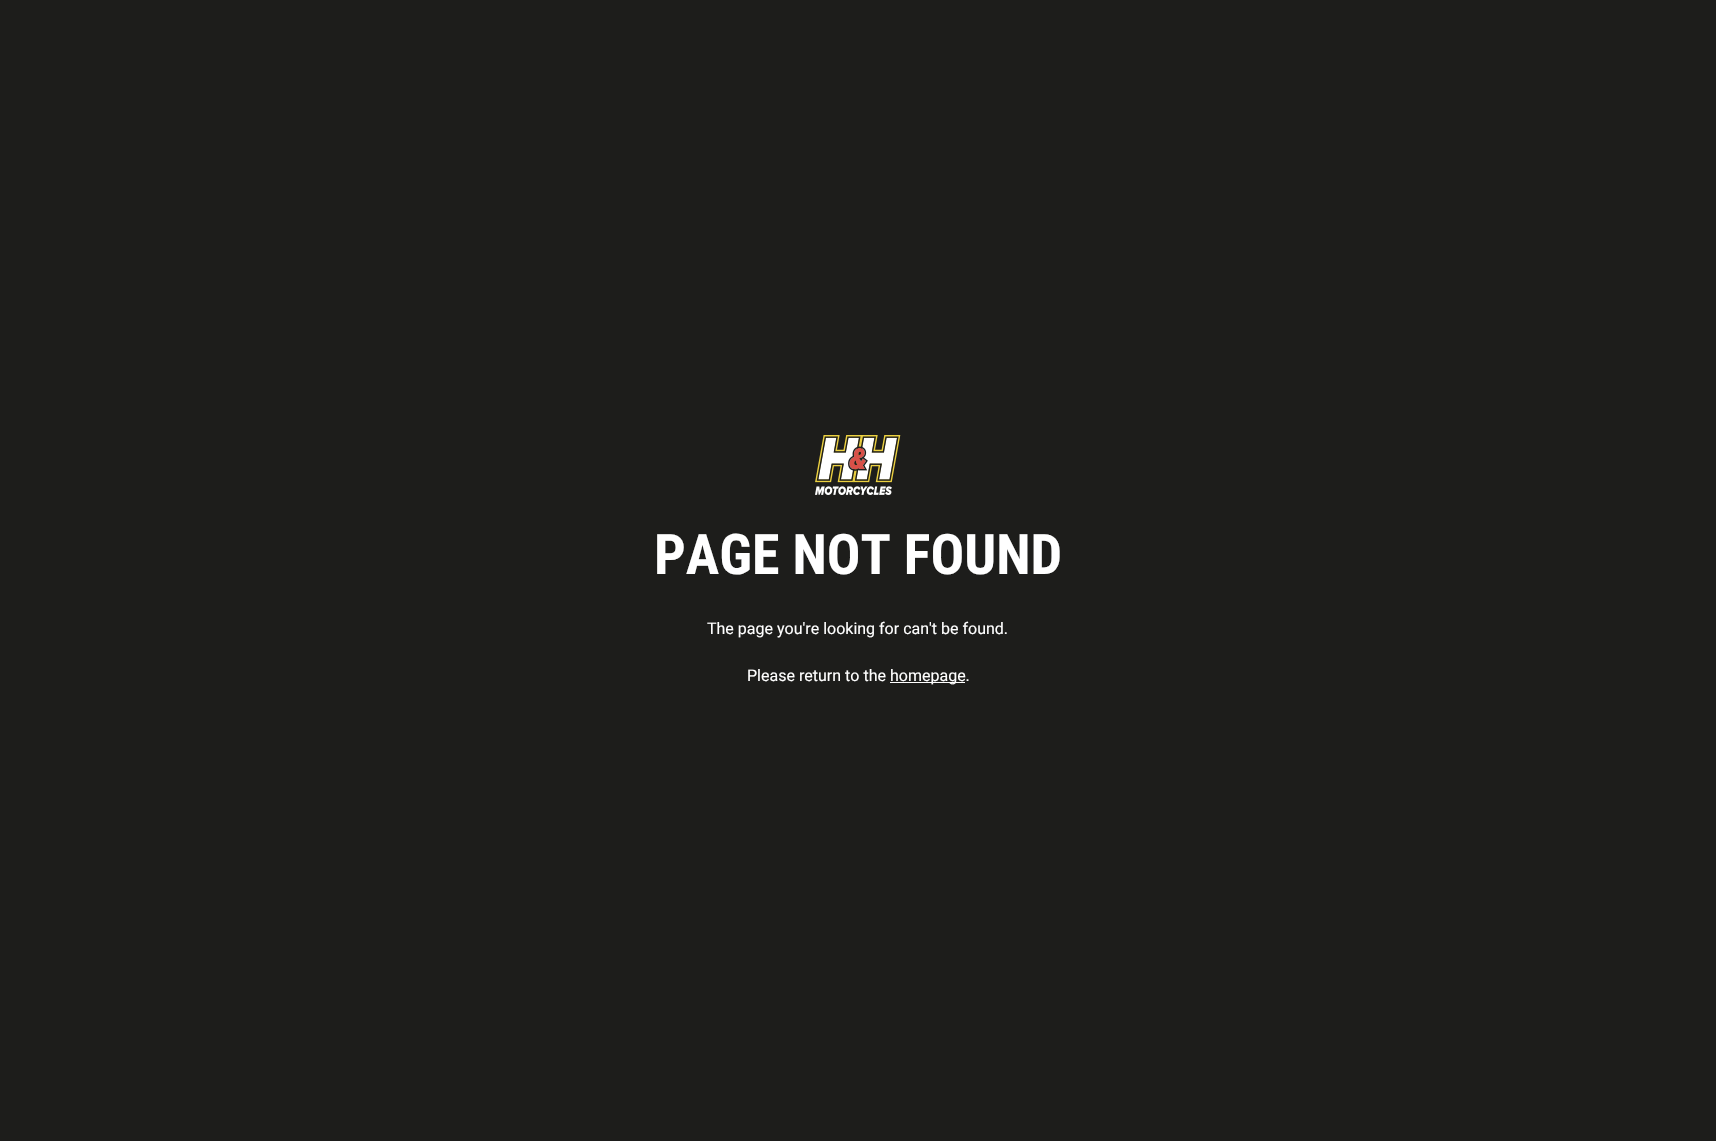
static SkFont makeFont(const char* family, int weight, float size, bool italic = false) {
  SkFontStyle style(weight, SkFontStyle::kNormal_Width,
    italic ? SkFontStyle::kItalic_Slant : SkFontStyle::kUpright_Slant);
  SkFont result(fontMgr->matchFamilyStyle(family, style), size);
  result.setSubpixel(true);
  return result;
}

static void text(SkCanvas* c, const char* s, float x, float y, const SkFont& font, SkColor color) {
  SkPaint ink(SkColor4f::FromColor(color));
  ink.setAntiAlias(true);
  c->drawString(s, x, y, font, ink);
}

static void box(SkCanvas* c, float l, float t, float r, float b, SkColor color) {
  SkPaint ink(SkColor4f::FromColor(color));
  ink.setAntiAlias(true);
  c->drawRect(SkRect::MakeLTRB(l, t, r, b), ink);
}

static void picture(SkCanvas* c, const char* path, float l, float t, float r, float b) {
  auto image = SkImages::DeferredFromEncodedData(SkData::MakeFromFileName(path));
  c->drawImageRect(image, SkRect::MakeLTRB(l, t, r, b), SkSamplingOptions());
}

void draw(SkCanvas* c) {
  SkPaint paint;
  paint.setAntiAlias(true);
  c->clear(0xff1d1d1b);
  picture(c, "img_01.png", 815, 435, 901, 495);
  SkFont face1 = makeFont("Roboto Condensed", 700, 56);
  text(c, "PAGE NOT FOUND", 654, 574, face1, 0xffffffff);
  SkFont face2 = makeFont("Roboto", 400, 16);
  text(c, "The page you're looking for can't be found.", 707, 634, face2, 0xffffffff);
  text(c, "Please return to the", 747, 681, face2, 0xffffffff);
  box(c, 890, 682, 965, 683, 0xffffffff);
  text(c, "homepage.", 890, 681, face2, 0xffffffff);
}
